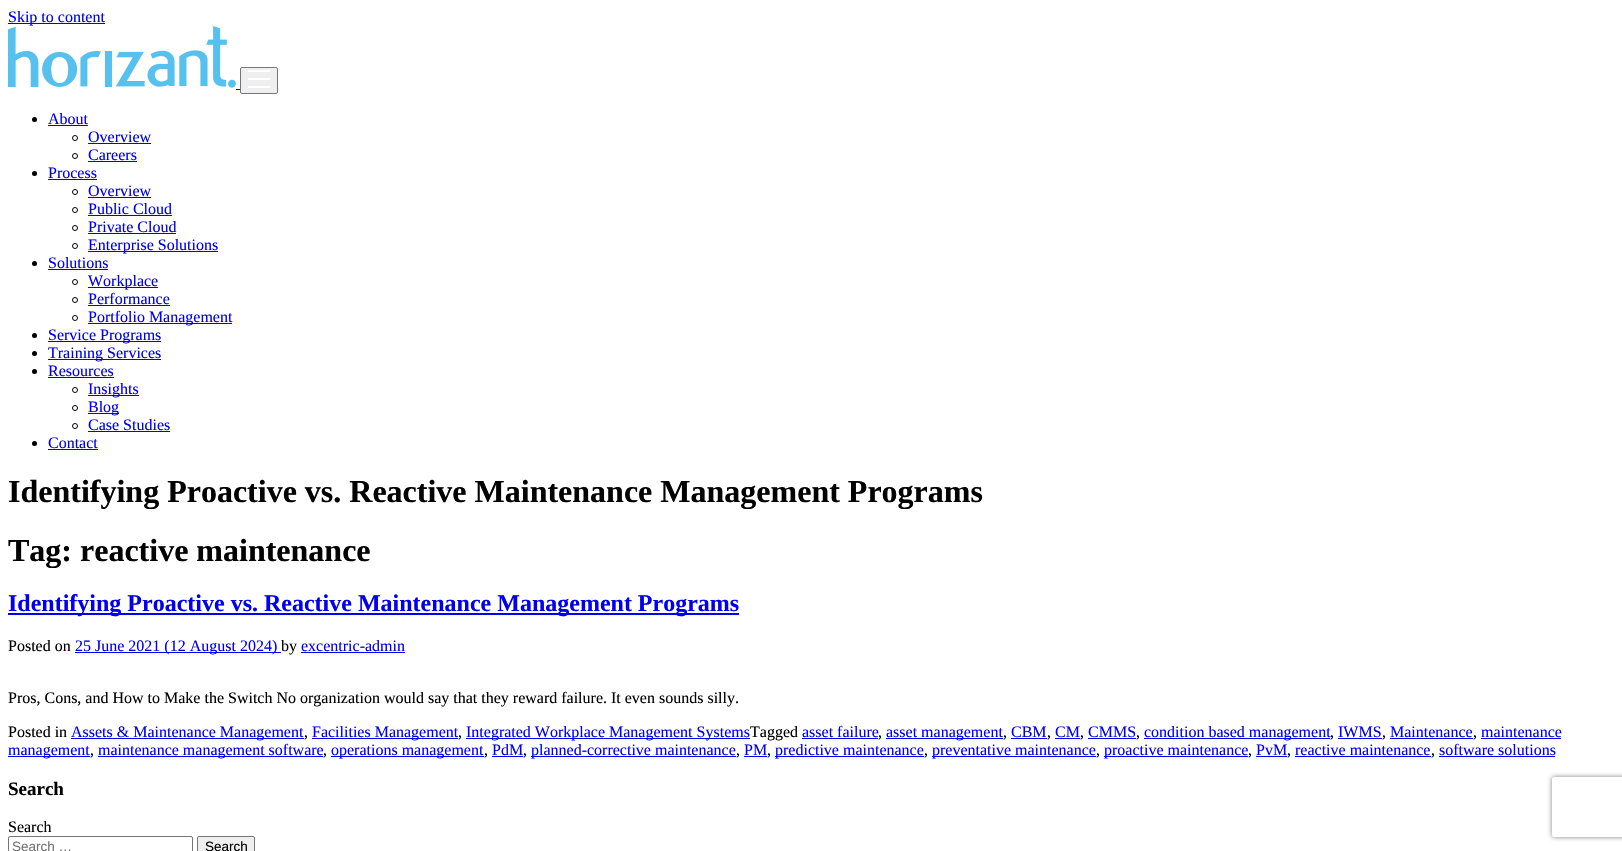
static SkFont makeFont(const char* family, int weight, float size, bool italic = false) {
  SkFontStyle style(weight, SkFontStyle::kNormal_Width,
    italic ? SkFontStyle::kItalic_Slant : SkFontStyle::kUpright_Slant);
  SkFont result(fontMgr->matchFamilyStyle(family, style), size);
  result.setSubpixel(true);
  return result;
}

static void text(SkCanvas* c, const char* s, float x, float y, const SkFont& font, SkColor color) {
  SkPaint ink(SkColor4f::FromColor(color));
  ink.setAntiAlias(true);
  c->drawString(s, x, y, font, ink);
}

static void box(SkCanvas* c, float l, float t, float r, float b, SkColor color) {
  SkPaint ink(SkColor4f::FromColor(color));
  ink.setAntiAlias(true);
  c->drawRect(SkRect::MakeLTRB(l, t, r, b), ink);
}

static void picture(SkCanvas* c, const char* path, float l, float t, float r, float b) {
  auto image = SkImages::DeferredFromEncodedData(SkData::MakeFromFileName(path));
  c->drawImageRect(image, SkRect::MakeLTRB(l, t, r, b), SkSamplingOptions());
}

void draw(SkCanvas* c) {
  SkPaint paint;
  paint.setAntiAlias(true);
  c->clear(0xffffffff);
  box(c, 8, 23, 105, 24, 0xff0000ee);
  SkFont face1 = makeFont("Liberation Serif", 400, 16);
  text(c, "Skip to content", 8, 22, face1, 0xff0000ee);
  picture(c, "img_01.png", 8, 26, 236, 88);
  box(c, 236, 89, 240, 90, 0xff0000ee);
  paint.setColor(0xffefefef);
  c->drawRoundRect(SkRect::MakeLTRB(240.5f, 67.5f, 277.5f, 93.5f), 1.5f, 1.5f, paint);
  paint.setStyle(SkPaint::kStroke_Style);
  paint.setStrokeWidth(1);
  paint.setColor(0xff767676);
  c->drawRoundRect(SkRect::MakeLTRB(240.5f, 67.5f, 277.5f, 93.5f), 1.5f, 1.5f, paint);
  box(c, 248, 70, 270, 72, 0xffffffff);
  box(c, 248, 78, 270, 80, 0xffffffff);
  box(c, 248, 86, 270, 88, 0xffffffff);
  paint.setStyle(SkPaint::kFill_Style);
  paint.setColor(0xff000000);
  c->drawCircle(34.5f, 119.5f, 2.5f, paint);
  text(c, "About", 48, 124, face1, 0xff0000ee);
  box(c, 48, 125, 88, 126, 0xff0000ee);
  paint.setStyle(SkPaint::kStroke_Style);
  c->drawCircle(75, 138, 2.5f, paint);
  text(c, "Overview", 88, 142, face1, 0xff0000ee);
  box(c, 88, 143, 151, 144, 0xff0000ee);
  c->drawCircle(75, 156, 2.5f, paint);
  text(c, "Careers", 88, 160, face1, 0xff0000ee);
  box(c, 88, 161, 137, 162, 0xff0000ee);
  paint.setStyle(SkPaint::kFill_Style);
  c->drawCircle(34.5f, 173.5f, 2.5f, paint);
  text(c, "Process", 48, 178, face1, 0xff0000ee);
  box(c, 48, 179, 97, 180, 0xff0000ee);
  paint.setStyle(SkPaint::kStroke_Style);
  c->drawCircle(75, 192, 2.5f, paint);
  text(c, "Overview", 88, 196, face1, 0xff0000ee);
  box(c, 88, 197, 151, 198, 0xff0000ee);
  c->drawCircle(75, 210, 2.5f, paint);
  text(c, "Public Cloud", 88, 214, face1, 0xff0000ee);
  box(c, 88, 215, 172, 216, 0xff0000ee);
  c->drawCircle(75, 228, 2.5f, paint);
  text(c, "Private Cloud", 88, 232, face1, 0xff0000ee);
  box(c, 88, 233, 176, 234, 0xff0000ee);
  c->drawCircle(75, 246, 2.5f, paint);
  box(c, 88, 251, 218, 252, 0xff0000ee);
  text(c, "Enterprise Solutions", 88, 250, face1, 0xff0000ee);
  paint.setStyle(SkPaint::kFill_Style);
  c->drawCircle(34.5f, 263.5f, 2.5f, paint);
  text(c, "Solutions", 48, 268, face1, 0xff0000ee);
  box(c, 48, 269, 108, 270, 0xff0000ee);
  paint.setStyle(SkPaint::kStroke_Style);
  c->drawCircle(75, 282, 2.5f, paint);
  box(c, 88, 287, 158, 288, 0xff0000ee);
  text(c, "Workplace", 88, 286, face1, 0xff0000ee);
  c->drawCircle(75, 300, 2.5f, paint);
  text(c, "Performance", 88, 304, face1, 0xff0000ee);
  box(c, 88, 305, 170, 306, 0xff0000ee);
  c->drawCircle(75, 318, 2.5f, paint);
  box(c, 88, 323, 232, 324, 0xff0000ee);
  text(c, "Portfolio Management", 88, 322, face1, 0xff0000ee);
  paint.setStyle(SkPaint::kFill_Style);
  c->drawCircle(34.5f, 335.5f, 2.5f, paint);
  box(c, 48, 341, 161, 342, 0xff0000ee);
  text(c, "Service Programs", 48, 340, face1, 0xff0000ee);
  c->drawCircle(34.5f, 353.5f, 2.5f, paint);
  box(c, 48, 359, 161, 360, 0xff0000ee);
  text(c, "Training Services", 48, 358, face1, 0xff0000ee);
  c->drawCircle(34.5f, 371.5f, 2.5f, paint);
  text(c, "Resources", 48, 376, face1, 0xff0000ee);
  box(c, 48, 377, 114, 378, 0xff0000ee);
  paint.setStyle(SkPaint::kStroke_Style);
  c->drawCircle(75, 390, 2.5f, paint);
  box(c, 88, 395, 139, 396, 0xff0000ee);
  text(c, "Insights", 88, 394, face1, 0xff0000ee);
  c->drawCircle(75, 408, 2.5f, paint);
  box(c, 88, 413, 119, 414, 0xff0000ee);
  text(c, "Blog", 88, 412, face1, 0xff0000ee);
  c->drawCircle(75, 426, 2.5f, paint);
  text(c, "Case Studies", 88, 430, face1, 0xff0000ee);
  box(c, 88, 431, 170, 432, 0xff0000ee);
  paint.setStyle(SkPaint::kFill_Style);
  c->drawCircle(34.5f, 443.5f, 2.5f, paint);
  text(c, "Contact", 48, 448, face1, 0xff0000ee);
  box(c, 48, 449, 98, 450, 0xff0000ee);
  SkFont face2 = makeFont("Liberation Serif", 700, 32);
  text(c, "Identifying Proactive vs. Reactive Maintenance Management Programs", 8, 502, face2, 0xff000000);
  text(c, "Tag: reactive maintenance", 8, 561, face2, 0xff000000);
  box(c, 8, 613, 739, 615, 0xff0000ee);
  SkFont face3 = makeFont("Liberation Serif", 700, 24);
  text(c, "Identifying Proactive vs. Reactive Maintenance Management Programs", 8, 611, face3, 0xff0000ee);
  text(c, "Posted on", 8, 651, face1, 0xff000000);
  box(c, 75, 652, 281, 653, 0xff0000ee);
  text(c, "25 June 2021 (12 August 2024)", 75, 651, face1, 0xff0000ee);
  text(c, "by", 281, 651, face1, 0xff000000);
  text(c, "excentric-admin", 301, 651, face1, 0xff0000ee);
  box(c, 301, 652, 405, 653, 0xff0000ee);
  text(c, "Pros, Cons, and How to Make the Switch No organization would say that they reward failure. It even sounds silly.", 8, 703, face1, 0xff000000);
  text(c, "Posted in", 8, 737, face1, 0xff000000);
  box(c, 71, 738, 304, 739, 0xff0000ee);
  text(c, "Assets & Maintenance Management", 71, 737, face1, 0xff0000ee);
  text(c, ",", 304, 737, face1, 0xff000000);
  box(c, 312, 738, 458, 739, 0xff0000ee);
  text(c, "Facilities Management", 312, 737, face1, 0xff0000ee);
  text(c, ",", 458, 737, face1, 0xff000000);
  box(c, 466, 738, 750, 739, 0xff0000ee);
  text(c, "Integrated Workplace Management Systems", 466, 737, face1, 0xff0000ee);
  text(c, "Tagged", 750, 737, face1, 0xff000000);
  text(c, "asset failure", 802, 737, face1, 0xff0000ee);
  text(c, ",", 878, 737, face1, 0xff000000);
  box(c, 802, 738, 878, 739, 0xff0000ee);
  box(c, 886, 738, 1003, 739, 0xff0000ee);
  text(c, "asset management", 886, 737, face1, 0xff0000ee);
  text(c, ",", 1003, 737, face1, 0xff000000);
  text(c, "CBM", 1011, 737, face1, 0xff0000ee);
  text(c, ",", 1047, 737, face1, 0xff000000);
  box(c, 1011, 738, 1047, 739, 0xff0000ee);
  text(c, "CM", 1055, 737, face1, 0xff0000ee);
  text(c, ",", 1080, 737, face1, 0xff000000);
  box(c, 1055, 738, 1080, 739, 0xff0000ee);
  text(c, "CMMS", 1088, 737, face1, 0xff0000ee);
  text(c, ",", 1136, 737, face1, 0xff000000);
  box(c, 1088, 738, 1136, 739, 0xff0000ee);
  box(c, 1144, 738, 1330, 739, 0xff0000ee);
  text(c, "condition based management", 1144, 737, face1, 0xff0000ee);
  text(c, ",", 1330, 737, face1, 0xff000000);
  text(c, "IWMS", 1338, 737, face1, 0xff0000ee);
  text(c, ",", 1382, 737, face1, 0xff000000);
  box(c, 1338, 738, 1382, 739, 0xff0000ee);
  text(c, "Maintenance", 1390, 737, face1, 0xff0000ee);
  text(c, ",", 1473, 737, face1, 0xff000000);
  box(c, 1390, 738, 1473, 739, 0xff0000ee);
  box(c, 1481, 738, 1561, 739, 0xff0000ee);
  text(c, "maintenance", 1481, 737, face1, 0xff0000ee);
  box(c, 8, 756, 90, 757, 0xff0000ee);
  text(c, "management", 8, 755, face1, 0xff0000ee);
  text(c, ",", 90, 755, face1, 0xff000000);
  box(c, 98, 756, 323, 757, 0xff0000ee);
  text(c, "maintenance management software", 98, 755, face1, 0xff0000ee);
  text(c, ",", 323, 755, face1, 0xff000000);
  box(c, 331, 756, 484, 757, 0xff0000ee);
  text(c, "operations management", 331, 755, face1, 0xff0000ee);
  text(c, ",", 484, 755, face1, 0xff000000);
  text(c, "PdM", 492, 755, face1, 0xff0000ee);
  text(c, ",", 523, 755, face1, 0xff000000);
  box(c, 492, 756, 523, 757, 0xff0000ee);
  box(c, 531, 756, 736, 757, 0xff0000ee);
  text(c, "planned-corrective maintenance", 531, 755, face1, 0xff0000ee);
  text(c, ",", 736, 755, face1, 0xff000000);
  text(c, "PM", 744, 755, face1, 0xff0000ee);
  text(c, ",", 767, 755, face1, 0xff000000);
  box(c, 744, 756, 767, 757, 0xff0000ee);
  box(c, 775, 756, 924, 757, 0xff0000ee);
  text(c, "predictive maintenance", 775, 755, face1, 0xff0000ee);
  text(c, ",", 924, 755, face1, 0xff000000);
  box(c, 932, 756, 1096, 757, 0xff0000ee);
  text(c, "preventative maintenance", 932, 755, face1, 0xff0000ee);
  text(c, ",", 1096, 755, face1, 0xff000000);
  box(c, 1104, 756, 1248, 757, 0xff0000ee);
  text(c, "proactive maintenance", 1104, 755, face1, 0xff0000ee);
  text(c, ",", 1248, 755, face1, 0xff000000);
  text(c, "PvM", 1256, 755, face1, 0xff0000ee);
  text(c, ",", 1287, 755, face1, 0xff000000);
  box(c, 1256, 756, 1287, 757, 0xff0000ee);
  text(c, "reactive maintenance", 1295, 755, face1, 0xff0000ee);
  text(c, ",", 1431, 755, face1, 0xff000000);
  box(c, 1295, 756, 1431, 757, 0xff0000ee);
  box(c, 1439, 756, 1555, 757, 0xff0000ee);
  text(c, "software solutions", 1439, 755, face1, 0xff0000ee);
  SkFont face4 = makeFont("Liberation Serif", 700, 19);
  text(c, "Search", 8, 795, face4, 0xff000000);
  text(c, "Search", 8, 832, face1, 0xff000000);
  paint.setStyle(SkPaint::kStroke_Style);
  paint.setColor(0xff767676);
  c->drawRoundRect(SkRect::MakeLTRB(8.5f, 836.5f, 192.5f, 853.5f), 1.5f, 1.5f, paint);
  SkFont face5 = makeFont("Liberation Sans", 400, 13.5f);
  text(c, "Search …", 12, 851, face5, 0xff757575);
  paint.setStyle(SkPaint::kFill_Style);
  paint.setColor(0xffefefef);
  c->drawRoundRect(SkRect::MakeLTRB(197.5f, 836.5f, 254.5f, 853.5f), 1.5f, 1.5f, paint);
  paint.setStyle(SkPaint::kStroke_Style);
  paint.setColor(0xff767676);
  c->drawRoundRect(SkRect::MakeLTRB(197.5f, 836.5f, 254.5f, 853.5f), 1.5f, 1.5f, paint);
  text(c, "Search", 205, 851, face5, 0xff000000);
  c->save();
  c->clipPath(SkPathBuilder(SkPathFillType::kEvenOdd).moveTo(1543, 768).lineTo(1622, 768).lineTo(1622, 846).lineTo(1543, 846).close().moveTo(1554, 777).lineTo(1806, 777).cubicTo(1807, 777, 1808, 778, 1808, 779).lineTo(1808, 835).cubicTo(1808, 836, 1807, 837, 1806, 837).lineTo(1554, 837).cubicTo(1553, 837, 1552, 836, 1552, 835).lineTo(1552, 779).cubicTo(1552, 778, 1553, 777, 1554, 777).close().detach(), true);
  paint.setStyle(SkPaint::kFill_Style);
  paint.setColor(0xff808080);
  paint.setMaskFilter(SkMaskFilter::MakeBlur(kNormal_SkBlurStyle, 2.5f));
  c->drawRoundRect(SkRect::MakeLTRB(1552, 777, 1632, 837), 2, 2, paint);
  paint.setMaskFilter(nullptr);
  c->restore();
}
